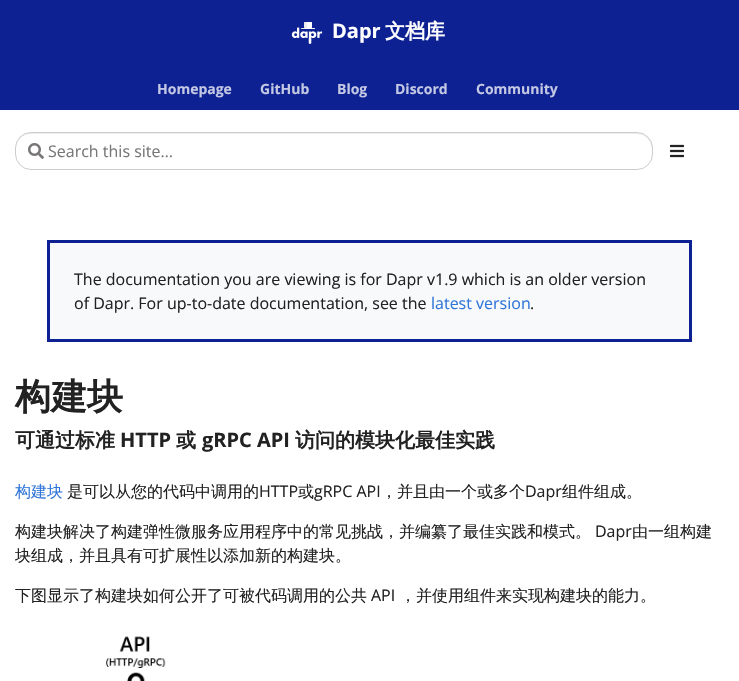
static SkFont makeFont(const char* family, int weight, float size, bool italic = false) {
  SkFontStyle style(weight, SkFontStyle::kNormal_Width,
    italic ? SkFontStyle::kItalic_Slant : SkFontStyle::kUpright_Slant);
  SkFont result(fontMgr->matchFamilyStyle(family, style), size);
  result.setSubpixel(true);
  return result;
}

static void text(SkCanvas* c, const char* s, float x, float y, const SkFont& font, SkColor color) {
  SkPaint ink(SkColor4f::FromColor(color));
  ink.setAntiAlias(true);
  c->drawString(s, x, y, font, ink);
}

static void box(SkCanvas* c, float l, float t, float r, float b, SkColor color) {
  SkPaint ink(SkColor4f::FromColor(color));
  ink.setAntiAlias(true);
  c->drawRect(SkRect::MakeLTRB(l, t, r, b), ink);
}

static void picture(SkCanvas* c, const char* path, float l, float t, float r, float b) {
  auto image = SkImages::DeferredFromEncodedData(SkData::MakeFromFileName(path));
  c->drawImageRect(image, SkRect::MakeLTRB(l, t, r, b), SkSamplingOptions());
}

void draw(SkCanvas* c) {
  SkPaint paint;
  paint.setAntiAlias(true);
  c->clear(0xffffffff);
  box(c, 0, 0, 739, 110, 0xff0d2192);
  picture(c, "img_01.png", 291, 22, 323, 44);
  SkFont face1 = makeFont("Open Sans", 700, 20);
  text(c, "Dapr", 332, 38, face1, 0xffffffff);
  SkFont face2 = makeFont("WenQuanYi Zen Hei", 700, 20);
  text(c, "文档库", 385, 38, face2, 0xffffffff);
  SkFont face3 = makeFont("Open Sans", 700, 14);
  text(c, "Homepage", 157, 94, face3, 0xffc3c8e4);
  text(c, "GitHub", 260, 94, face3, 0xffc3c8e4);
  text(c, "Blog", 337, 94, face3, 0xffc3c8e4);
  text(c, "Discord", 395, 94, face3, 0xffc3c8e4);
  text(c, "Community", 476, 94, face3, 0xffc3c8e4);
  paint.setColor(0xffececec);
  c->drawPath(SkPathBuilder().moveTo(31, 134).lineTo(637, 134).cubicTo(647, 134, 652, 143, 652, 152).cubicTo(652, 155, 651, 159, 650, 162).cubicTo(651, 160, 652, 157, 652, 154).lineTo(652, 148).cubicTo(652, 140, 645, 133, 637, 133).lineTo(31, 133).cubicTo(23, 133, 16, 139, 16, 147).cubicTo(17, 140, 22, 134, 31, 134).close().detach(), paint);
  paint.setStyle(SkPaint::kStroke_Style);
  paint.setStrokeWidth(1);
  paint.setColor(0xffcccccc);
  c->drawRoundRect(SkRect::MakeLTRB(15.5f, 132.5f, 652.5f, 169.5f), 15.5f, 15.5f, paint);
  picture(c, "img_02.png", 28, 143, 44, 159);
  SkFont face4 = makeFont("Open Sans", 400, 16);
  text(c, "Search this site…", 48, 157, face4, 0xff797676);
  picture(c, "img_03.png", 670, 144, 684, 158);
  paint.setStyle(SkPaint::kFill_Style);
  paint.setColor(0xfff8f9fa);
  c->drawRect(SkRect::MakeLTRB(48.5f, 241.5f, 690.5f, 340.5f), paint);
  paint.setStyle(SkPaint::kStroke_Style);
  paint.setStrokeWidth(3);
  paint.setColor(0xff0d2192);
  c->drawRect(SkRect::MakeLTRB(48.5f, 241.5f, 690.5f, 340.5f), paint);
  text(c, "The documentation you are viewing is for Dapr v1.9 which is an older version", 74, 285, face4, 0xff222222);
  text(c, "of Dapr. For up-to-date documentation, see the", 74, 309, face4, 0xff222222);
  text(c, "latest version", 431, 309, face4, 0xff3176d9);
  text(c, ".", 530, 309, face4, 0xff222222);
  SkFont face5 = makeFont("WenQuanYi Zen Hei", 700, 36);
  text(c, "构建块", 15, 409, face5, 0xff222222);
  text(c, "可通过标准", 15, 447, face2, 0xff222222);
  text(c, "HTTP", 120, 447, face1, 0xff222222);
  text(c, "或", 176, 447, face2, 0xff222222);
  text(c, "gRPC API", 202, 447, face1, 0xff222222);
  text(c, "访问的模块化最佳实践", 295, 447, face2, 0xff222222);
  SkFont face6 = makeFont("WenQuanYi Zen Hei", 500, 16);
  text(c, "构建块", 15, 497, face6, 0xff3176d9);
  text(c, "是可以从您的代码中调用的", 67, 497, face6, 0xff222222);
  text(c, "HTTP", 259, 497, face4, 0xff222222);
  text(c, "或", 298, 497, face6, 0xff222222);
  text(c, "gRPC API", 314, 497, face4, 0xff222222);
  text(c, "，并且由一个或多个", 381, 497, face6, 0xff222222);
  text(c, "Dapr", 525, 497, face4, 0xff222222);
  text(c, "组件组成。", 562, 497, face6, 0xff222222);
  text(c, "构建块解决了构建弹性微服务应用程序中的常见挑战，并编纂了最佳实践和模式。", 15, 537, face6, 0xff222222);
  text(c, "Dapr", 595, 537, face4, 0xff222222);
  text(c, "由一组构建", 632, 537, face6, 0xff222222);
  text(c, "块组成，并且具有可扩展性以添加新的构建块。", 15, 561, face6, 0xff222222);
  text(c, "下图显示了构建块如何公开了可被代码调用的公共", 15, 601, face6, 0xff222222);
  text(c, "API", 371, 601, face4, 0xff222222);
  text(c, "，并使用组件来实现构建块的能力。", 400, 601, face6, 0xff222222);
  picture(c, "img_04.png", 106, 636, 166, 681);
}
